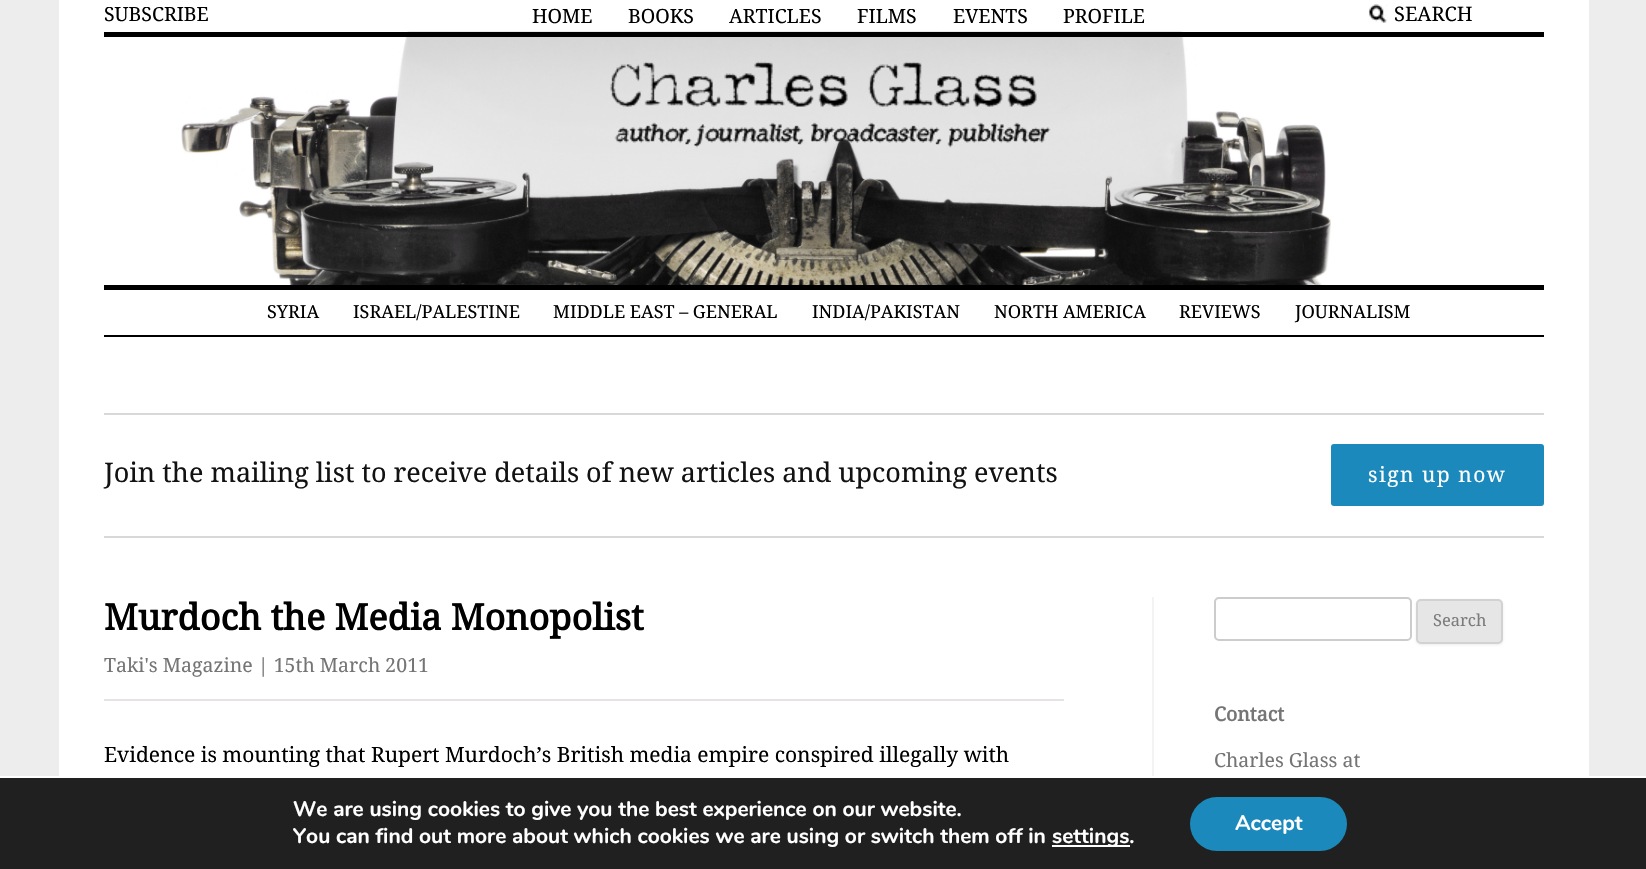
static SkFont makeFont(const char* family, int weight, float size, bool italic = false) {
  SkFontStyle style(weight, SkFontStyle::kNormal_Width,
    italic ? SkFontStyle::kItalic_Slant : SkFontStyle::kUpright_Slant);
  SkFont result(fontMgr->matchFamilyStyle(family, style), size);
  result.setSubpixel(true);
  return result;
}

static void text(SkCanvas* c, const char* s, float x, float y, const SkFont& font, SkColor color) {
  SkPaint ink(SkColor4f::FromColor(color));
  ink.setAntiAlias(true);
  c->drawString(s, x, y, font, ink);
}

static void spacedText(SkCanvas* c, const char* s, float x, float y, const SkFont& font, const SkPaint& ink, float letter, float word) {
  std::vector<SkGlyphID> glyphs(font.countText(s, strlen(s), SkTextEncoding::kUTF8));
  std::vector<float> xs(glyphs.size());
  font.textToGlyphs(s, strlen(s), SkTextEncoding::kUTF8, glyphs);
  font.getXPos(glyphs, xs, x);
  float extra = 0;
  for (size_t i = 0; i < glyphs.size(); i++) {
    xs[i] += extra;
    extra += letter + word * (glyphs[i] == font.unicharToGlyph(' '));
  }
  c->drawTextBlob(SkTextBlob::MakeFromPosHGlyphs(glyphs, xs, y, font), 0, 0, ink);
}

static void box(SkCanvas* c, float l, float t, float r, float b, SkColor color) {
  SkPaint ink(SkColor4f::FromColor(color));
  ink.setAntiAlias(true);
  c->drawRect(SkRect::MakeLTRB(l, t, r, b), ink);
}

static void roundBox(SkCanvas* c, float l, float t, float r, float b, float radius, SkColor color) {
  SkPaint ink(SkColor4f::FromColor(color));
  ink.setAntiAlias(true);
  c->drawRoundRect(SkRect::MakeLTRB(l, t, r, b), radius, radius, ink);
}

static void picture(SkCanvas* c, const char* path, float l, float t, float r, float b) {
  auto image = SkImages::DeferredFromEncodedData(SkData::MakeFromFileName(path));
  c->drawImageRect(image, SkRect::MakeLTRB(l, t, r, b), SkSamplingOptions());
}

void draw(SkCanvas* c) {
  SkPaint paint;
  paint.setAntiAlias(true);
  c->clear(0xffededed);
  box(c, 59, 0, 1589, 776, 0xffffffff);
  SkFont face1 = makeFont("Droid Serif", 400, 19.5f);
  text(c, "SUBSCRIBE", 104, 21, face1, 0xff000000);
  text(c, "HOME", 532, 23, face1, 0xff000000);
  text(c, "BOOKS", 628, 23, face1, 0xff000000);
  text(c, "ARTICLES", 729, 23, face1, 0xff000000);
  text(c, "FILMS", 857, 23, face1, 0xff000000);
  text(c, "EVENTS", 953, 23, face1, 0xff000000);
  text(c, "PROFILE", 1063, 23, face1, 0xff000000);
  picture(c, "img_01.png", 1368, 4, 1388, 23);
  SkFont face2 = makeFont("Droid Serif", 400, 20);
  text(c, "SEARCH", 1394, 21, face2, 0xff000000);
  picture(c, "img_02.png", 181, 31, 1331, 285);
  box(c, 104, 32, 1544, 37, 0xff000000);
  box(c, 104, 285, 1544, 290, 0xff000000);
  picture(c, "img_03.png", 610, 61, 1051, 148);
  box(c, 104, 335, 1544, 337, 0xff000000);
  SkFont face3 = makeFont("Droid Serif", 400, 18);
  text(c, "SYRIA", 267, 318, face3, 0xff000000);
  text(c, "ISRAEL/PALESTINE", 353, 318, face3, 0xff000000);
  text(c, "MIDDLE EAST – GENERAL", 553, 318, face3, 0xff000000);
  text(c, "INDIA/PAKISTAN", 812, 318, face3, 0xff000000);
  text(c, "NORTH AMERICA", 994, 318, face3, 0xff000000);
  text(c, "REVIEWS", 1179, 318, face3, 0xff000000);
  text(c, "JOURNALISM", 1295, 318, face3, 0xff000000);
  box(c, 104, 413, 1544, 415, 0xffd8d8d8);
  box(c, 104, 536, 1544, 538, 0xffd8d8d8);
  SkFont face4 = makeFont("Droid Serif", 400, 27);
  text(c, "Join the mailing list to receive details of new articles and upcoming events", 104, 482, face4, 0xff121212);
  roundBox(c, 1331, 444, 1544, 506, 3, 0xff1b89bb);
  SkFont face5 = makeFont("Droid Serif", 400, 21);
  paint.setColor(0xffffffff);
  spacedText(c, "sign up now", 1368, 482, face5, paint, 1.5f, 0);
  SkFont face6 = makeFont("Droid Serif", 700, 36);
  text(c, "Murdoch the Media Monopolist", 104, 630, face6, 0xff000000);
  box(c, 104, 699, 1064, 701, 0xffe8e3e3);
  text(c, "Taki's Magazine | 15th March 2011", 104, 672, face1, 0xff757575);
  text(c, "Evidence is mounting that Rupert Murdoch’s British media empire conspired illegally with", 104, 762, face5, 0xff000000);
  box(c, 1152, 597, 1154, 776, 0xfff3f3f3);
  paint.setStyle(SkPaint::kStroke_Style);
  paint.setStrokeWidth(2);
  paint.setColor(0xffcccccc);
  c->drawRoundRect(SkRect::MakeLTRB(1215, 598, 1411, 640), 4, 4, paint);
  paint.setStyle(SkPaint::kFill_Style);
  paint.setColor(0x1a404040);
  paint.setMaskFilter(SkMaskFilter::MakeBlur(kNormal_SkBlurStyle, 1.5f));
  c->drawRoundRect(SkRect::MakeLTRB(1416, 600, 1503, 645), 5, 5, paint);
  paint.setMaskFilter(nullptr);
  paint.setColor(0xffe6e6e6);
  c->drawRoundRect(SkRect::MakeLTRB(1417, 600, 1502, 643), 4, 4, paint);
  paint.setStyle(SkPaint::kStroke_Style);
  paint.setColor(0xffd2d2d2);
  c->drawRoundRect(SkRect::MakeLTRB(1417, 600, 1502, 643), 4, 4, paint);
  SkFont face7 = makeFont("Droid Serif", 400, 16.5f);
  text(c, "Search", 1433, 626, face7, 0xff7c7c7c);
  SkFont face8 = makeFont("Droid Serif", 700, 19.5f);
  text(c, "Contact", 1214, 721, face8, 0xff757575);
  text(c, "Charles Glass at", 1214, 767, face1, 0xff757575);
  box(c, 0, 778, 1646, 869, 0xff202020);
  box(c, 0, 776, 1646, 778, 0xffffffff);
  SkFont face9 = makeFont("Nunito", 700, 21);
  text(c, "We are using cookies to give you the best experience on our website.", 293, 816, face9, 0xffffffff);
  text(c, "You can find out more about which cookies we are using or switch them off in", 293, 843, face9, 0xffffffff);
  box(c, 1052, 845, 1130, 847, 0xffffffff);
  text(c, "settings.", 1052, 843, face9, 0xffffffff);
  roundBox(c, 1190, 797, 1347, 851, 27, 0xff1b89bb);
  text(c, "Accept", 1235, 830, face9, 0xffffffff);
}
